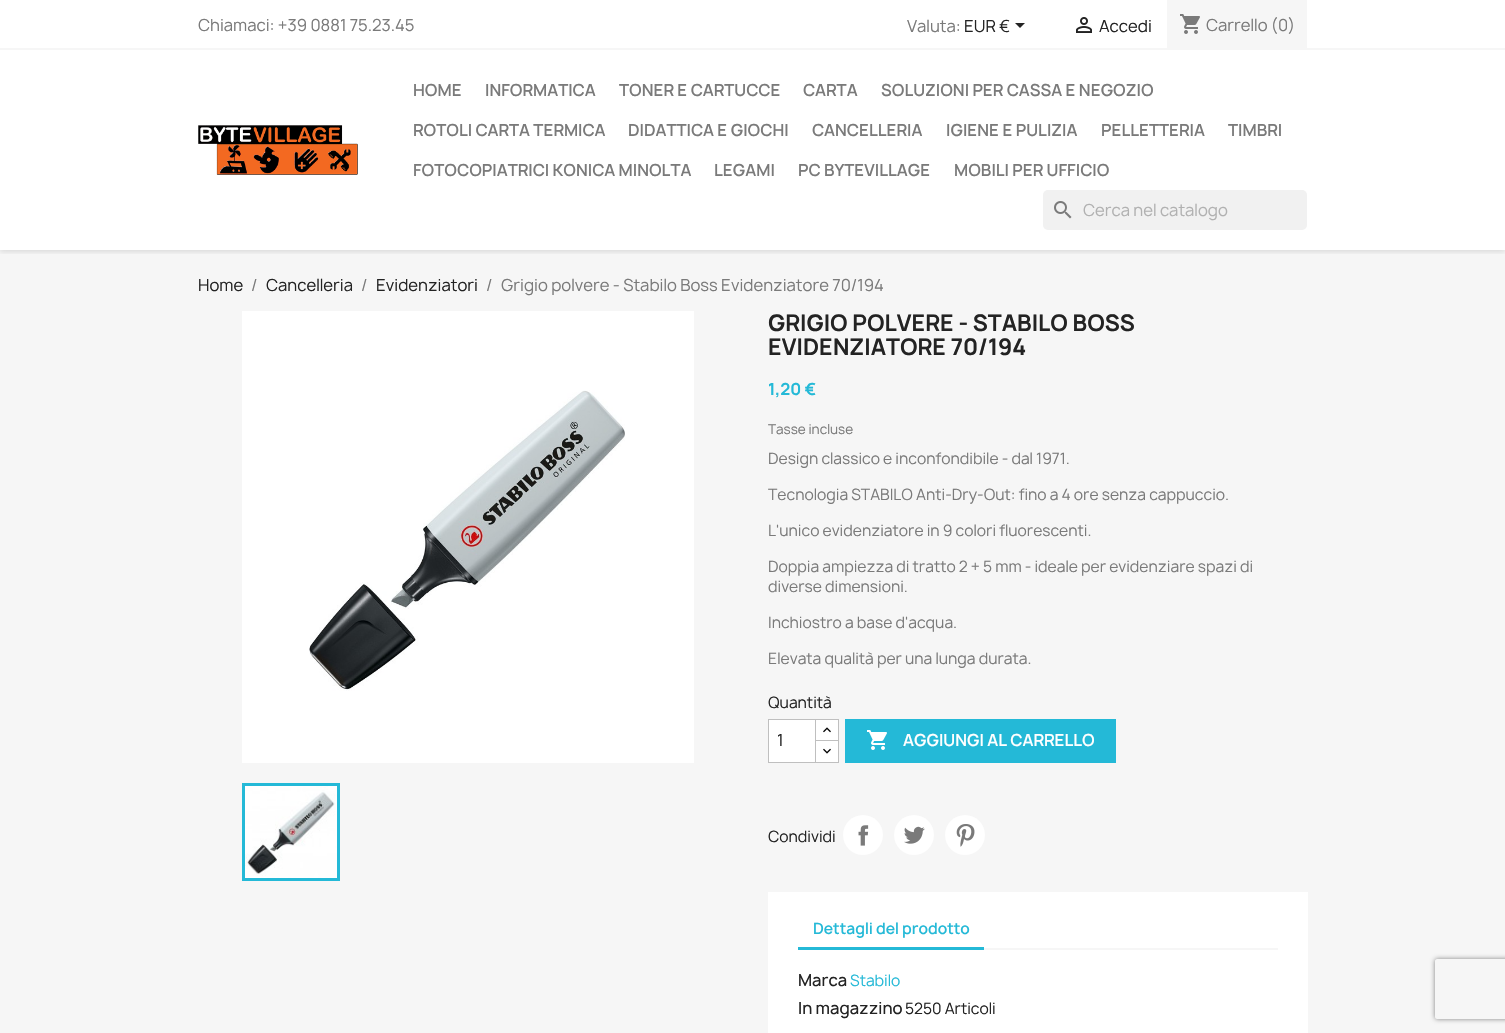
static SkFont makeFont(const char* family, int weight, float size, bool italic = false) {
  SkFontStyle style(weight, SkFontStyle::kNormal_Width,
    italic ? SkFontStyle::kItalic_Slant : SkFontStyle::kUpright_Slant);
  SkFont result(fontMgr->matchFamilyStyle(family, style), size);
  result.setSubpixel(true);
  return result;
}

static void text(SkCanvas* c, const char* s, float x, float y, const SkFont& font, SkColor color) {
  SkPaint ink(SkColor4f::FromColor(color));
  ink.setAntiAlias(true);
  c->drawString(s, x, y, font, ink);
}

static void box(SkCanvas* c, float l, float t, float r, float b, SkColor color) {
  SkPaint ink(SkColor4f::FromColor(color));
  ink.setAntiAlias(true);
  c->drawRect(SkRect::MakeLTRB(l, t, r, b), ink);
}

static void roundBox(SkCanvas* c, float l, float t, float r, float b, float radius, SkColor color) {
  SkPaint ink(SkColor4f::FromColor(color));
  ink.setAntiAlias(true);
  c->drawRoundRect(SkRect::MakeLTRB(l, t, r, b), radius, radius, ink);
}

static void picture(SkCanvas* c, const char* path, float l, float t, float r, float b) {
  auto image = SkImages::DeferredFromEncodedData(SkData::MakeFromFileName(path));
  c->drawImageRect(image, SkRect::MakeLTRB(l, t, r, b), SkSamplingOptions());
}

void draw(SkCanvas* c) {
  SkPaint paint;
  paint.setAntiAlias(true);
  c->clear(0xffffffff);
  box(c, 0, 250, 1505, 1033, 0xfff6f6f6);
  c->save();
  c->clipRect(SkRect::MakeLTRB(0, 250, 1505, 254));
  paint.setColor(0x1c000000);
  paint.setMaskFilter(SkMaskFilter::MakeBlur(kNormal_SkBlurStyle, 2.5f));
  c->drawRect(SkRect::MakeLTRB(0, 2, 1505, 252), paint);
  paint.setMaskFilter(nullptr);
  c->restore();
  box(c, 0, 48, 1505, 50, 0xfff6f6f6);
  SkFont face1 = makeFont("Manrope", 400, 16);
  text(c, "Chiamaci: +39 0881 75.23.45", 198, 31, face1, 0xff7a7a7a);
  text(c, "Valuta:", 907, 32, face1, 0xff7a7a7a);
  text(c, "EUR €", 964, 32, face1, 0xff232323);
  paint.setColor(0xff232323);
  c->drawPath(SkPathBuilder().moveTo(1015, 23).lineTo(1025, 23).lineTo(1020, 28).close().detach(), paint);
  picture(c, "img_01.png", 1076, 17, 1092, 33);
  text(c, "Accedi", 1099, 32, face1, 0xff232323);
  box(c, 1167, 0, 1307, 48, 0xfff6f6f6);
  picture(c, "img_02.png", 1180, 14, 1200, 34);
  text(c, "Carrello (0)", 1206, 31, face1, 0xff7a7a7a);
  picture(c, "img_03.png", 198, 125, 358, 175);
  SkFont face2 = makeFont("Manrope", 600, 16);
  text(c, "HOME", 413, 96, face2, 0xff7a7a7a);
  text(c, "INFORMATICA", 485, 96, face2, 0xff7a7a7a);
  text(c, "TONER E CARTUCCE", 619, 96, face2, 0xff7a7a7a);
  text(c, "CARTA", 803, 96, face2, 0xff7a7a7a);
  text(c, "SOLUZIONI PER CASSA E NEGOZIO", 881, 96, face2, 0xff7a7a7a);
  text(c, "ROTOLI CARTA TERMICA", 413, 136, face2, 0xff7a7a7a);
  text(c, "DIDATTICA E GIOCHI", 628, 136, face2, 0xff7a7a7a);
  text(c, "CANCELLERIA", 812, 136, face2, 0xff7a7a7a);
  text(c, "IGIENE E PULIZIA", 946, 136, face2, 0xff7a7a7a);
  text(c, "PELLETTERIA", 1101, 136, face2, 0xff7a7a7a);
  text(c, "TIMBRI", 1228, 136, face2, 0xff7a7a7a);
  text(c, "FOTOCOPIATRICI KONICA MINOLTA", 413, 176, face2, 0xff7a7a7a);
  text(c, "LEGAMI", 714, 176, face2, 0xff7a7a7a);
  text(c, "PC BYTEVILLAGE", 798, 176, face2, 0xff7a7a7a);
  text(c, "MOBILI PER UFFICIO", 954, 176, face2, 0xff7a7a7a);
  roundBox(c, 1043, 190, 1307, 230, 5, 0xfff1f1f1);
  picture(c, "img_04.png", 1054, 201, 1072, 219);
  text(c, "Cerca nel catalogo", 1083, 216, face1, 0xffb1b1b1);
  text(c, "Home", 198, 291, face1, 0xff232323);
  text(c, "/", 251, 291, face1, 0xff7a7a7a);
  text(c, "Cancelleria", 266, 291, face1, 0xff232323);
  text(c, "/", 361, 291, face1, 0xff7a7a7a);
  text(c, "Evidenziatori", 376, 291, face1, 0xff232323);
  text(c, "/", 486, 291, face1, 0xff7a7a7a);
  text(c, "Grigio polvere - Stabilo Boss Evidenziatore 70/194", 501, 291, face1, 0xff7a7a7a);
  box(c, 242, 311, 694, 763, 0xffffffff);
  picture(c, "img_05.png", 309, 390, 625, 691);
  paint.setStyle(SkPaint::kStroke_Style);
  paint.setStrokeWidth(3);
  paint.setColor(0xff24b9d7);
  c->drawRect(SkRect::MakeLTRB(243.5f, 784.5f, 338.5f, 879.5f), paint);
  picture(c, "img_06.png", 245, 786, 337, 878);
  SkFont face3 = makeFont("Manrope", 700, 22);
  text(c, "GRIGIO POLVERE - STABILO BOSS", 768, 331, face3, 0xff232323);
  text(c, "EVIDENZIATORE 70/194", 768, 355, face3, 0xff232323);
  SkFont face4 = makeFont("Manrope", 700, 16);
  text(c, "1,20 €", 768, 395, face4, 0xff24b9d7);
  SkFont face5 = makeFont("Manrope", 400, 13);
  text(c, "Tasse incluse", 768, 434, face5, 0xff7a7a7a);
  SkFont face6 = makeFont("Manrope", 400, 15);
  text(c, "Design classico e inconfondibile - dal 1971.", 768, 464, face6, 0xff7a7a7a);
  text(c, "Tecnologia STABILO Anti-Dry-Out: fino a 4 ore senza cappuccio.", 768, 500, face6, 0xff7a7a7a);
  text(c, "L'unico evidenziatore in 9 colori fluorescenti.", 768, 536, face6, 0xff7a7a7a);
  text(c, "Doppia ampiezza di tratto 2 + 5 mm - ideale per evidenziare spazi di", 768, 572, face6, 0xff7a7a7a);
  text(c, "diverse dimensioni.", 768, 592, face6, 0xff7a7a7a);
  text(c, "Inchiostro a base d'acqua.", 768, 628, face6, 0xff7a7a7a);
  text(c, "Elevata qualità per una lunga durata.", 768, 664, face6, 0xff7a7a7a);
  text(c, "Quantità", 768, 708, face6, 0xff232323);
  box(c, 816, 720, 838, 740, 0xffffffff);
  paint.setStrokeWidth(1);
  paint.setColor(0xffbfbfbf);
  c->drawRect(SkRect::MakeLTRB(815.5f, 719.5f, 838.5f, 741.5f), paint);
  paint.setStyle(SkPaint::kFill_Style);
  paint.setColor(0xffffffff);
  c->drawRect(SkRect::MakeLTRB(815.5f, 740.5f, 838.5f, 762.5f), paint);
  paint.setStyle(SkPaint::kStroke_Style);
  paint.setColor(0xffbfbfbf);
  c->drawRect(SkRect::MakeLTRB(815.5f, 740.5f, 838.5f, 762.5f), paint);
  paint.setStyle(SkPaint::kFill_Style);
  paint.setColor(0xffffffff);
  c->drawRect(SkRect::MakeLTRB(768.5f, 719.5f, 815.5f, 762.5f), paint);
  paint.setStyle(SkPaint::kStroke_Style);
  paint.setColor(0xffbfbfbf);
  c->drawRect(SkRect::MakeLTRB(768.5f, 719.5f, 815.5f, 762.5f), paint);
  text(c, "1", 777, 746, face1, 0xff232323);
  picture(c, "img_07.png", 823, 727, 831, 733);
  picture(c, "img_08.png", 823, 748, 831, 754);
  box(c, 845, 719, 1116, 763, 0xff24b9d7);
  picture(c, "img_09.png", 867, 730, 887, 750);
  text(c, "AGGIUNGI AL CARRELLO", 903, 746, face2, 0xffffffff);
  text(c, "Condividi", 768, 842, face6, 0xff232323);
  paint.setStyle(SkPaint::kFill_Style);
  paint.setColor(0xffffffff);
  c->drawCircle(863, 835, 20, paint);
  picture(c, "img_10.png", 858, 825, 869, 846);
  c->drawCircle(914, 835, 20, paint);
  picture(c, "img_11.png", 904, 826, 925, 844);
  c->drawCircle(965, 835, 20, paint);
  picture(c, "img_12.png", 956, 824, 975, 847);
  box(c, 768, 892, 1308, 1033, 0xffffffff);
  box(c, 984, 948, 1278, 950, 0xfff6f6f6);
  box(c, 798, 947, 984, 950, 0xff24b9d7);
  SkFont face7 = makeFont("Manrope", 600, 15);
  text(c, "Dettagli del prodotto", 813, 934, face7, 0xff24b9d7);
  SkFont face8 = makeFont("Manrope", 500, 16);
  text(c, "Marca", 798, 986, face8, 0xff232323);
  text(c, "Stabilo", 850, 986, face6, 0xff24b9d7);
  text(c, "In magazzino", 798, 1014, face8, 0xff232323);
  text(c, "5250 Articoli", 905, 1014, face6, 0xff232323);
  c->save();
  c->clipPath(SkPathBuilder(SkPathFillType::kEvenOdd).moveTo(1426, 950).lineTo(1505, 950).lineTo(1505, 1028).lineTo(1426, 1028).close().moveTo(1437, 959).lineTo(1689, 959).cubicTo(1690, 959, 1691, 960, 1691, 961).lineTo(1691, 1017).cubicTo(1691, 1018, 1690, 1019, 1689, 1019).lineTo(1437, 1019).cubicTo(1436, 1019, 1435, 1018, 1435, 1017).lineTo(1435, 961).cubicTo(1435, 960, 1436, 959, 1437, 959).close().detach(), true);
  paint.setColor(0xff808080);
  paint.setMaskFilter(SkMaskFilter::MakeBlur(kNormal_SkBlurStyle, 2.5f));
  c->drawRoundRect(SkRect::MakeLTRB(1435, 959, 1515, 1019), 2, 2, paint);
  paint.setMaskFilter(nullptr);
  c->restore();
}
